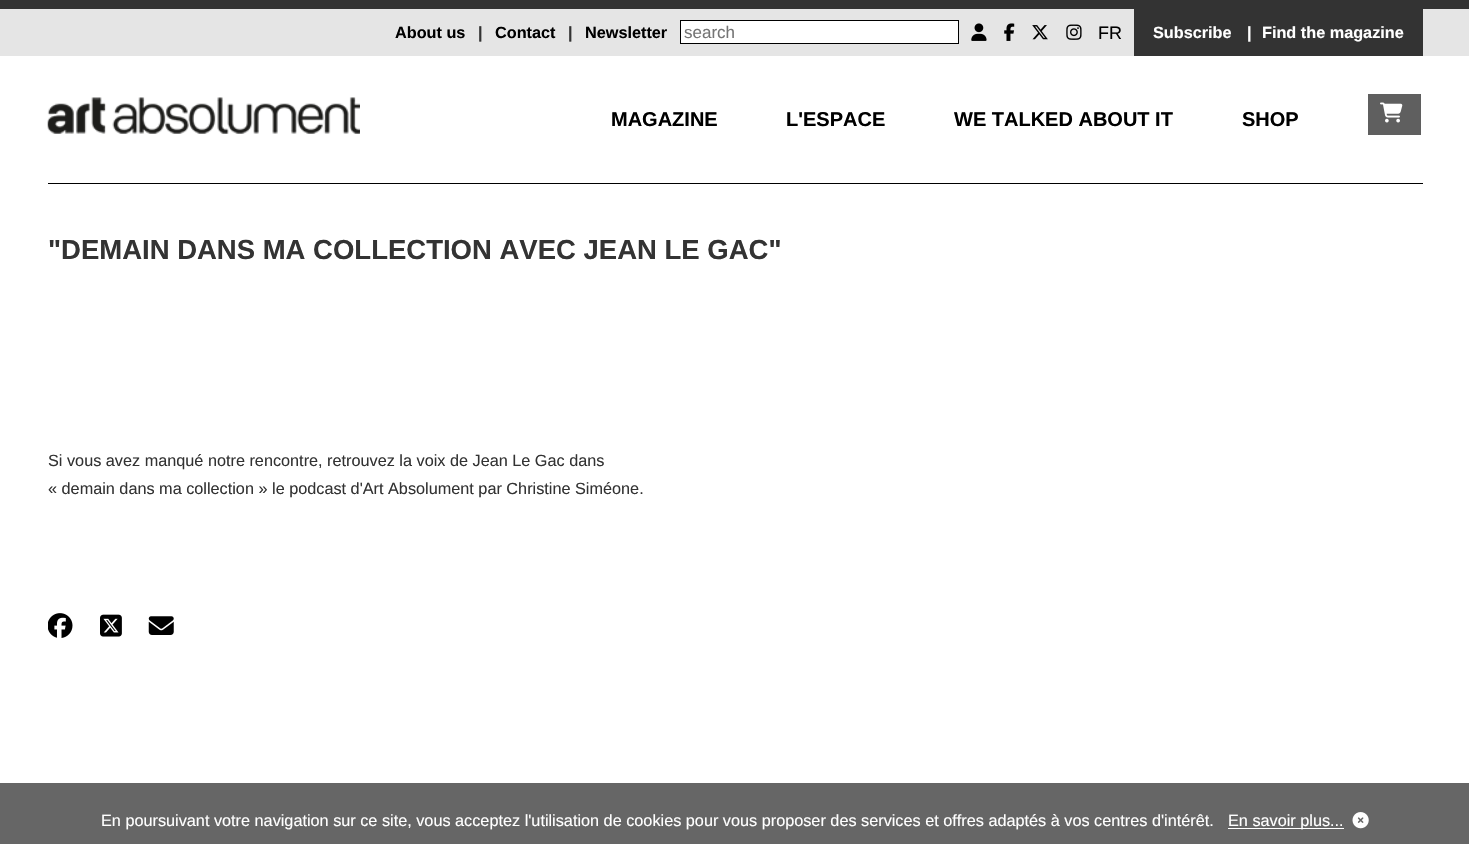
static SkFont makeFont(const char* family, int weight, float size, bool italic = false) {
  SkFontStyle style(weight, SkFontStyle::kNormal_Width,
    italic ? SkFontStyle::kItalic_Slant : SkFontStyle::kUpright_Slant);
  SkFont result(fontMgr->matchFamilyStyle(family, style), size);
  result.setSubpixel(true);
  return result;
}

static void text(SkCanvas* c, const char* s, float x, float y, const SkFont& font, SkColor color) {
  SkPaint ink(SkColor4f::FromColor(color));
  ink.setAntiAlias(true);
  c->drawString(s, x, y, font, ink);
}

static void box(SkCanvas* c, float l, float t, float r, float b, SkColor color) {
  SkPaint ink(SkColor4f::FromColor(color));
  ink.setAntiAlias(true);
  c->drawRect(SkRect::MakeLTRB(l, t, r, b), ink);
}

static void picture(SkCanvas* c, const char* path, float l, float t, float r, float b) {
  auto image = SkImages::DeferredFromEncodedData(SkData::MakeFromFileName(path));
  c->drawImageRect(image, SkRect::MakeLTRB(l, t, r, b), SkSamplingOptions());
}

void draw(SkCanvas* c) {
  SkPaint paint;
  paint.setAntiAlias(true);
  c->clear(0xffffffff);
  box(c, 0, 0, 1469, 9, 0xff333333);
  box(c, 0, 9, 1469, 56, 0xffe5e5e5);
  SkFont face1 = makeFont("Liberation Sans", 700, 16.25f);
  text(c, "About us", 395, 38, face1, 0xff000000);
  text(c, "|", 478, 38, face1, 0xff333333);
  text(c, "Contact", 495, 38, face1, 0xff000000);
  text(c, "|", 568, 38, face1, 0xff333333);
  text(c, "Newsletter", 585, 38, face1, 0xff000000);
  paint.setColor(0xffffffff);
  c->drawRect(SkRect::MakeLTRB(680.5f, 20.5f, 958.5f, 43.5f), paint);
  paint.setStyle(SkPaint::kStroke_Style);
  paint.setStrokeWidth(1);
  paint.setColor(0xff000000);
  c->drawRect(SkRect::MakeLTRB(680.5f, 20.5f, 958.5f, 43.5f), paint);
  SkFont face2 = makeFont("Liberation Sans", 400, 17);
  text(c, "search", 684, 38, face2, 0xff757575);
  picture(c, "img_01.png", 971, 23, 987, 41);
  picture(c, "img_02.png", 1004, 23, 1015, 41);
  picture(c, "img_03.png", 1032, 25, 1048, 40);
  picture(c, "img_04.png", 1066, 24, 1082, 40);
  SkFont face3 = makeFont("Liberation Sans", 400, 18);
  text(c, "FR", 1098, 39, face3, 0xff000000);
  box(c, 1134, 9, 1423, 56, 0xff333333);
  text(c, "Subscribe", 1153, 38, face1, 0xffffffff);
  text(c, "|", 1247, 38, face1, 0xffffffff);
  text(c, "Find the magazine", 1262, 38, face1, 0xffffffff);
  box(c, 48, 183, 1423, 184, 0xff000000);
  picture(c, "img_05.png", 47, 97, 360, 134);
  SkFont face4 = makeFont("Liberation Sans", 700, 20);
  text(c, "MAGAZINE", 611, 126, face4, 0xff000000);
  text(c, "L'ESPACE", 786, 126, face4, 0xff000000);
  text(c, "WE TALKED ABOUT IT", 954, 126, face4, 0xff000000);
  text(c, "SHOP", 1242, 126, face4, 0xff000000);
  box(c, 1368, 94, 1421, 135, 0xff5f5f5f);
  picture(c, "img_06.png", 1380, 102, 1403, 123);
  SkFont face5 = makeFont("Liberation Sans", 700, 27.5f);
  text(c, "\"DEMAIN DANS MA COLLECTION AVEC JEAN LE GAC\"", 48, 259, face5, 0xff333333);
  SkFont face6 = makeFont("Liberation Sans", 400, 16.25f);
  text(c, "Si vous avez manqué notre rencontre, retrouvez la voix de Jean Le Gac dans", 48, 466, face6, 0xff333333);
  text(c, "« demain dans ma collection » le podcast d'Art Absolument par Christine Siméone.", 48, 494, face6, 0xff333333);
  picture(c, "img_07.png", 48, 613, 73, 638);
  picture(c, "img_08.png", 100, 614, 122, 637);
  picture(c, "img_09.png", 148, 616, 174, 635);
  box(c, 0, 783, 1469, 844, 0xff666666);
  text(c, "En poursuivant votre navigation sur ce site, vous acceptez l'utilisation de cookies pour vous proposer des services et offres adaptés à vos centres d'intérêt.", 101, 826, face6, 0xffffffff);
  box(c, 1228, 828, 1344, 829, 0xffffffff);
  text(c, "En savoir plus...", 1228, 826, face6, 0xffffffff);
  picture(c, "img_10.png", 1352, 812, 1369, 829);
}
